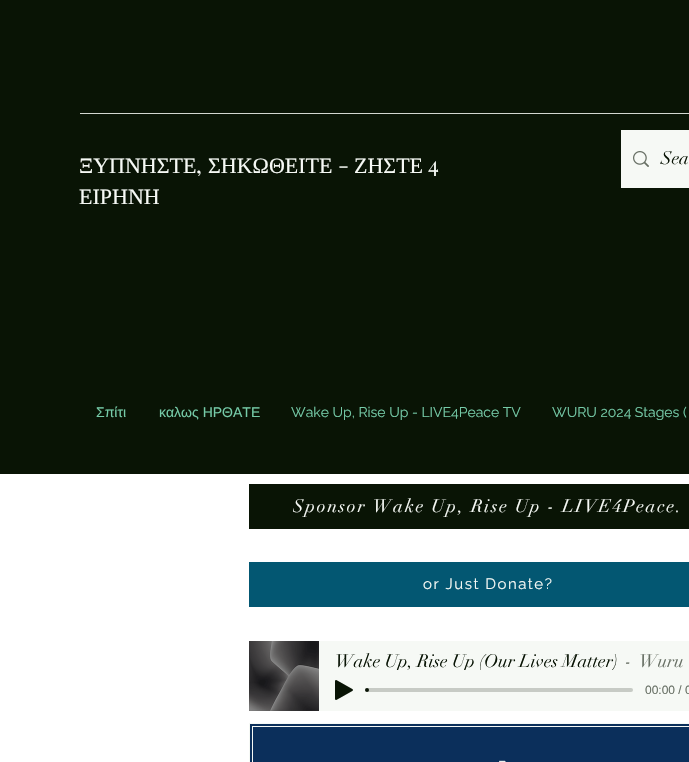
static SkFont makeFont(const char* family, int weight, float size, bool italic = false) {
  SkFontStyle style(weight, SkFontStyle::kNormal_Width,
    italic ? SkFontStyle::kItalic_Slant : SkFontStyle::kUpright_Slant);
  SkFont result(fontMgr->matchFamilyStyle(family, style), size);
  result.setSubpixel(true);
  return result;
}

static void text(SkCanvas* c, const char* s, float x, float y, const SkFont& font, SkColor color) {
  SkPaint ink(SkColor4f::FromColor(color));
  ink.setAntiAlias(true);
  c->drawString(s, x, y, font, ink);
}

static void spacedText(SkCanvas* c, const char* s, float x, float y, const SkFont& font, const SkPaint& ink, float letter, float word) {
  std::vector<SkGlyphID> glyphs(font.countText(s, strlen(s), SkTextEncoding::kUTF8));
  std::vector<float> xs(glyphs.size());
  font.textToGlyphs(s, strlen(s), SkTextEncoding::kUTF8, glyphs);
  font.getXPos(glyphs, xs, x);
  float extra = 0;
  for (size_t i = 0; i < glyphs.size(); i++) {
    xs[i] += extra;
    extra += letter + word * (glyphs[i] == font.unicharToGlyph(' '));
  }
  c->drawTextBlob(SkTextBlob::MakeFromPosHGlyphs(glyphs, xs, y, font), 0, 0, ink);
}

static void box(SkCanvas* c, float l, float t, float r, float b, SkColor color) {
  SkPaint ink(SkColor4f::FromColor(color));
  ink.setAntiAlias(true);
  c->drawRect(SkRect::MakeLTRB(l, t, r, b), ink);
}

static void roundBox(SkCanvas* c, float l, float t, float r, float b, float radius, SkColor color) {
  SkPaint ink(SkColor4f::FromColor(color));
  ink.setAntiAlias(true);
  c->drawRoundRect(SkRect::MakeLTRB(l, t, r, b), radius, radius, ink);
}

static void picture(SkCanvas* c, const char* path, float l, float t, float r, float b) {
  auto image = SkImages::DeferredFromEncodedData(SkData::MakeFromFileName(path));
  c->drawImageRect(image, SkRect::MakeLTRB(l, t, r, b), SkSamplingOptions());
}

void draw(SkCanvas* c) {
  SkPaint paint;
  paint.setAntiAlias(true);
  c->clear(0xffffffff);
  box(c, 0, 0, 689, 474, 0xff091405);
  box(c, 80, 113, 689, 114, 0xffd2d7d1);
  SkFont face1 = makeFont("Liberation Serif", 400, 22);
  text(c, "ΞΥΠΝΗΣΤΕ", 79, 173, face1, 0xfff6f9f5);
  text(c, "ΣΗΚΩΘΕΙΤΕ", 208, 173, face1, 0xfff6f9f5);
  SkFont face2 = makeFont("Playfair Display", 400, 22);
  text(c, "-", 338, 173, face2, 0xfff6f9f5);
  text(c, "ΖΗΣΤΕ", 354, 173, face1, 0xfff6f9f5);
  text(c, "4", 428, 173, face2, 0xfff6f9f5);
  text(c, ",", 196, 173, face2, 0xfff6f9f5);
  text(c, "ΕΙΡΗΝΗ", 79, 204, face1, 0xfff6f9f5);
  box(c, 621, 130, 689, 188, 0xfff6f9f5);
  picture(c, "img_01.png", 633, 151, 649, 167);
  SkFont face3 = makeFont("didot", 400, 18);
  text(c, "Sea", 661, 164, face3, 0xff091405);
  SkFont face4 = makeFont("Liberation Sans", 400, 14);
  text(c, "Σπίτι", 96, 417, face4, 0xff75cba8);
  text(c, "καλως ΗΡΘΑΤΕ", 159, 417, face4, 0xff75cba8);
  SkFont face5 = makeFont("Raleway", 400, 14);
  text(c, "Wake Up, Rise Up - LIVE4Peace TV", 291, 417, face5, 0xff75cba8);
  text(c, "WURU 2024 Stages (", 552, 417, face5, 0xff75cba8);
  box(c, 249, 484, 689, 529, 0xff091405);
  c->save();
  c->clipRect(SkRect::MakeLTRB(293, 495, 683, 517));
  paint.setColor(0xfff6f9f5);
  spacedText(c, "Sponsor Wake Up, Rise Up - LIVE4Peace.", 293, 512, face3, paint, 1.8f, 0);
  c->restore();
  box(c, 249, 562, 689, 607, 0xff035772);
  SkFont face6 = makeFont("Raleway", 400, 15);
  spacedText(c, "or Just Donate?", 423, 589, face6, paint, 1.5f, 0);
  box(c, 319, 641, 689, 711, 0xfff6f9f5);
  picture(c, "img_02.png", 249, 641, 319, 711);
  c->save();
  c->clipRect(SkRect::MakeLTRB(335, 652, 618, 670));
  text(c, "Wake Up, Rise Up (Our Lives Matter)", 335, 667, face3, 0xff091405);
  c->restore();
  text(c, "-", 625, 667, face3, 0xff687065);
  text(c, "Wuru", 639, 667, face3, 0xff687065);
  picture(c, "img_03.png", 335, 680, 353, 700);
  roundBox(c, 367, 688, 633, 692, 2, 0xffc7cbc5);
  paint.setColor(0xff091405);
  c->drawCircle(367, 690, 2, paint);
  SkFont face7 = makeFont("Liberation Sans", 400, 12);
  text(c, "00:00 / 0", 645, 694, face7, 0xff687065);
  paint.setColor(0xff0b2f5b);
  c->drawRect(SkRect::MakeLTRB(249.5f, 723.5f, 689.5f, 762.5f), paint);
  paint.setStyle(SkPaint::kStroke_Style);
  paint.setStrokeWidth(1);
  paint.setColor(0xfff6f9f5);
  c->drawRect(SkRect::MakeLTRB(249.5f, 723.5f, 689.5f, 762.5f), paint);
  c->drawRect(SkRect::MakeLTRB(252.5f, 726.5f, 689.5f, 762.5f), paint);
  SkFont face8 = makeFont("Playfair Display", 400, 17);
  paint.setStyle(SkPaint::kFill_Style);
  spacedText(c, "-", 498, 766, face8, paint, 3, 0);
}
